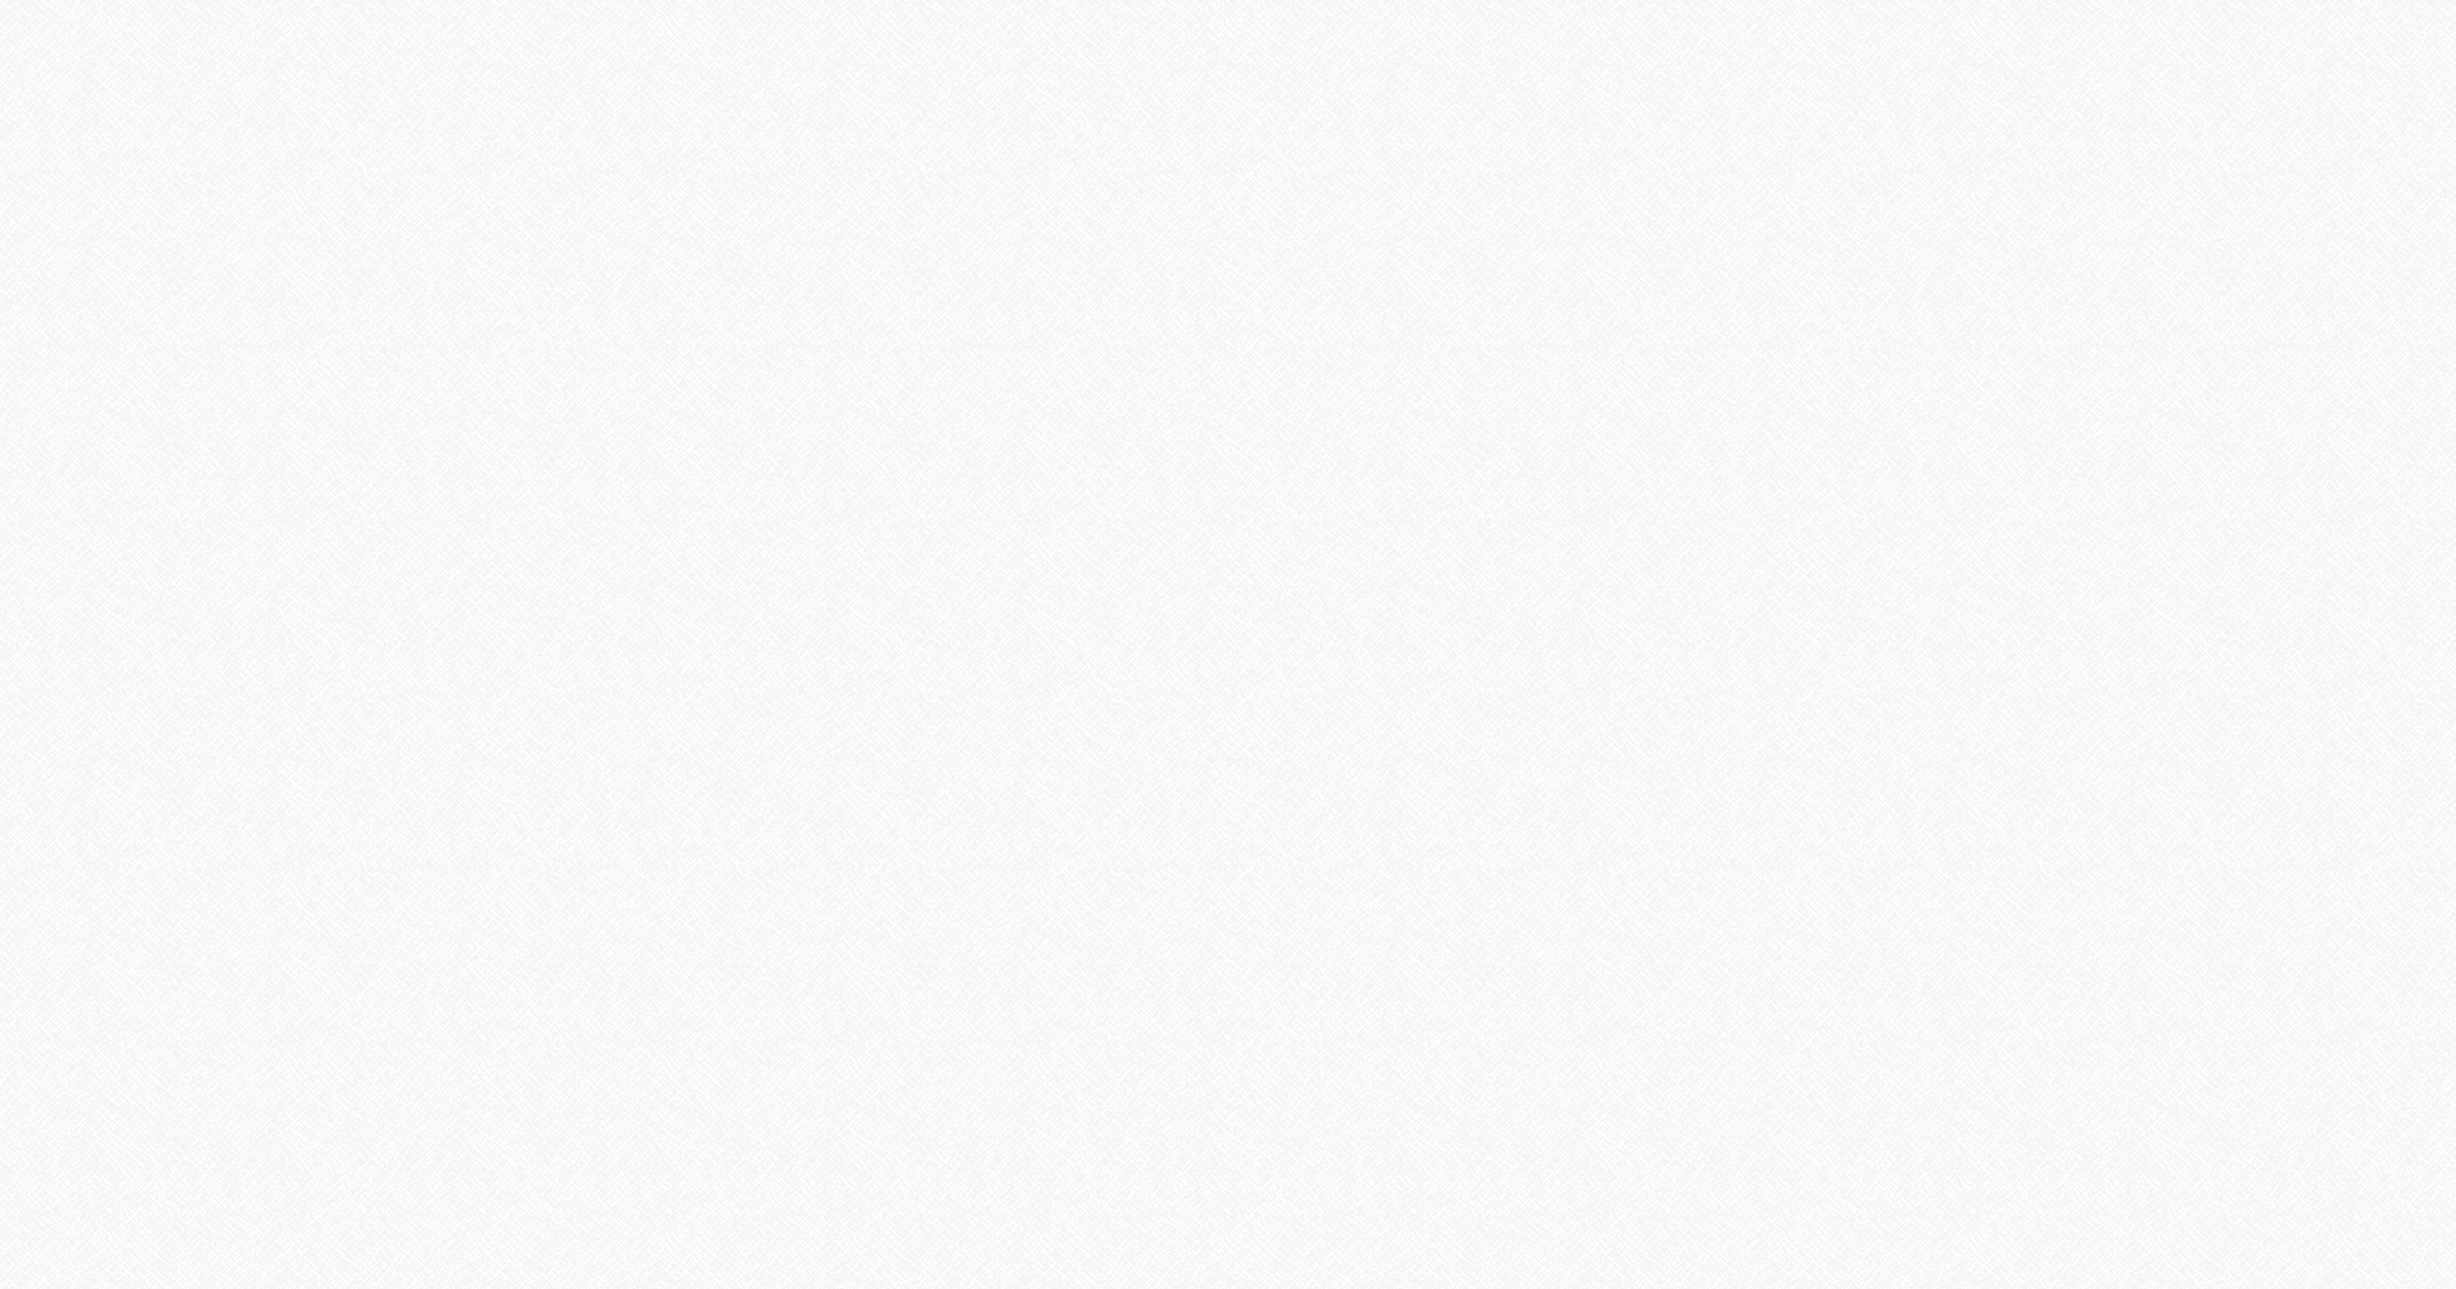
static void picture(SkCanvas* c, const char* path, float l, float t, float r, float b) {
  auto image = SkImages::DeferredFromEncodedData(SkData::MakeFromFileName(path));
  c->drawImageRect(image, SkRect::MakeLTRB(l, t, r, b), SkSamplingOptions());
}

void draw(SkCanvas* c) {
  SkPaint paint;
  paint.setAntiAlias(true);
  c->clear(0xffffffff);
  picture(c, "img_01.png", 0, 0, 2456, 1289);
}
